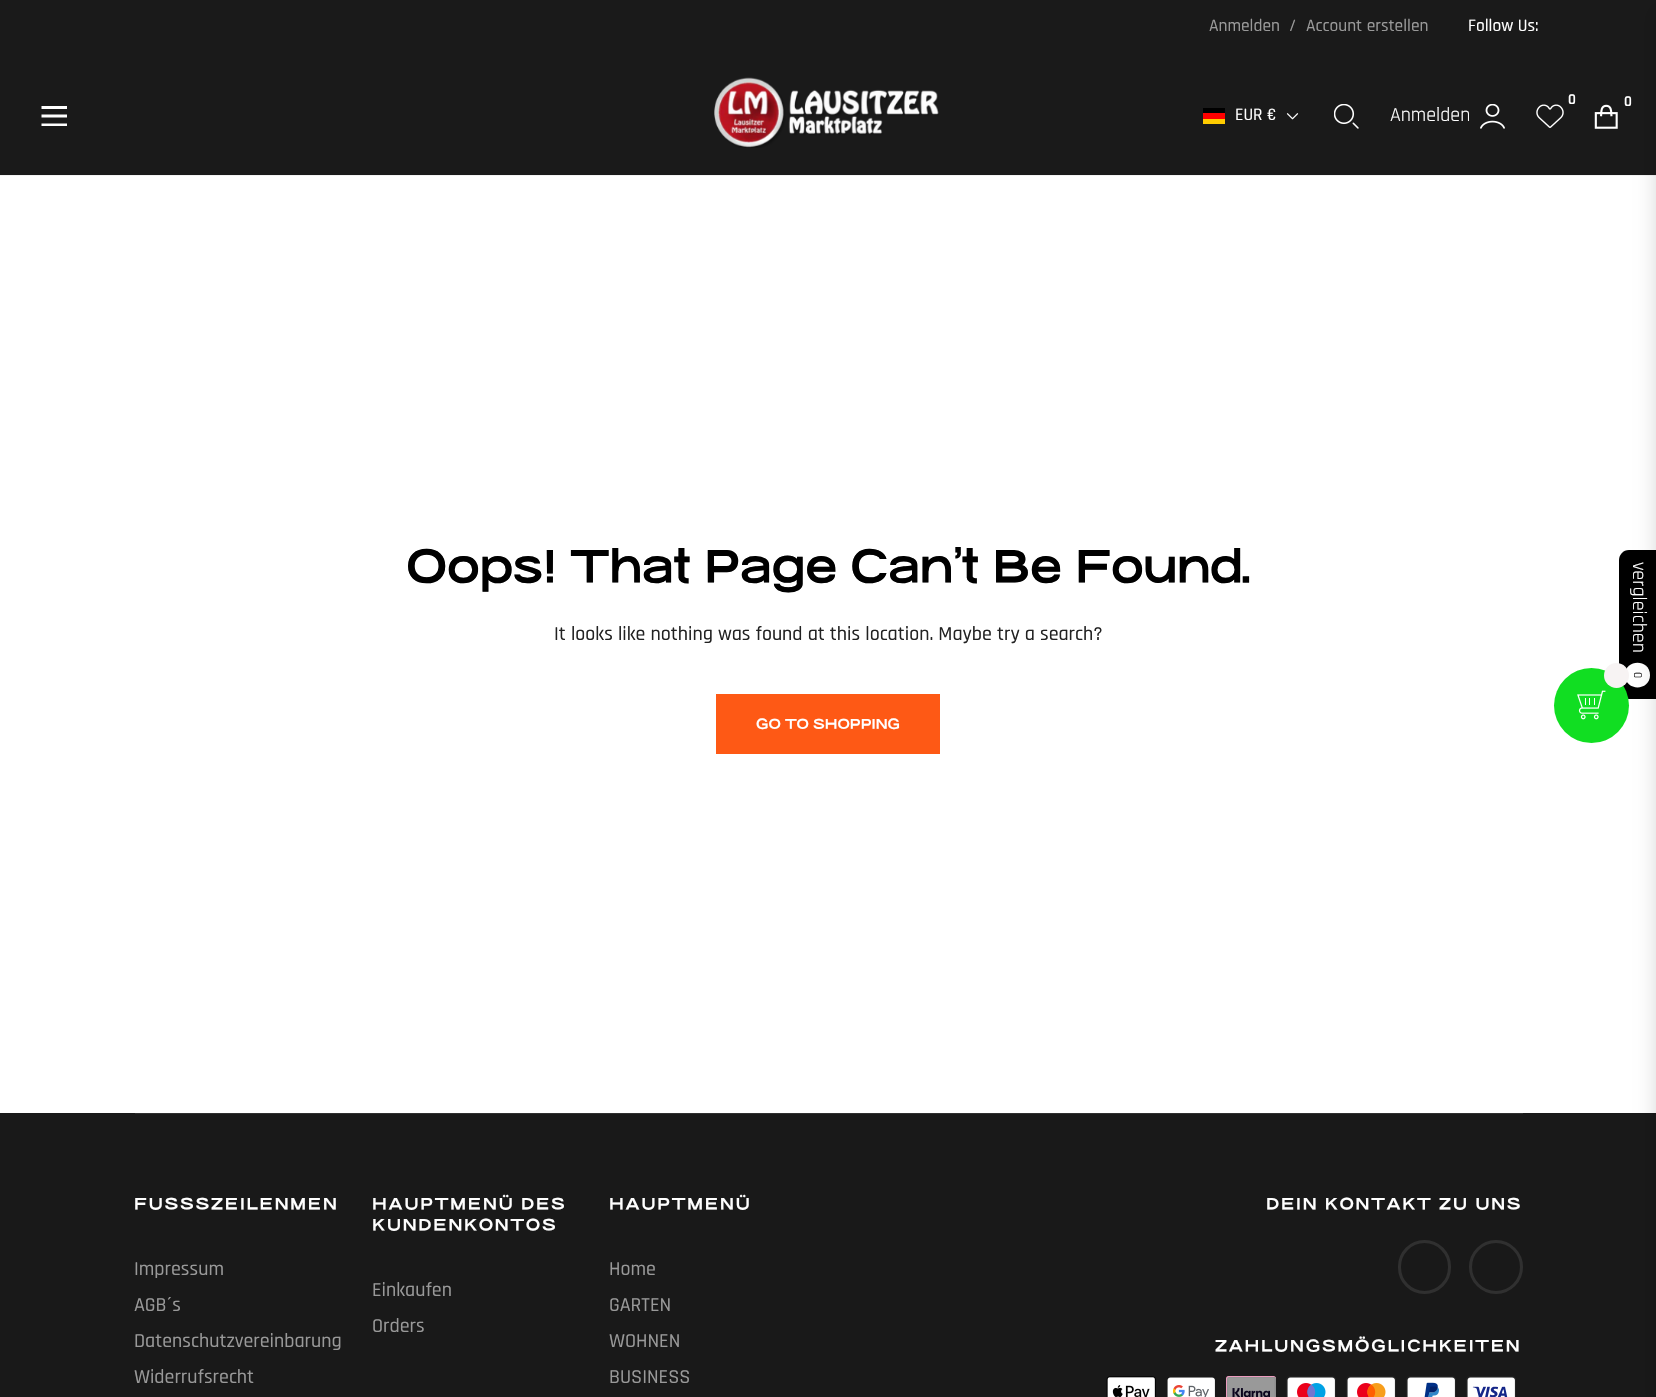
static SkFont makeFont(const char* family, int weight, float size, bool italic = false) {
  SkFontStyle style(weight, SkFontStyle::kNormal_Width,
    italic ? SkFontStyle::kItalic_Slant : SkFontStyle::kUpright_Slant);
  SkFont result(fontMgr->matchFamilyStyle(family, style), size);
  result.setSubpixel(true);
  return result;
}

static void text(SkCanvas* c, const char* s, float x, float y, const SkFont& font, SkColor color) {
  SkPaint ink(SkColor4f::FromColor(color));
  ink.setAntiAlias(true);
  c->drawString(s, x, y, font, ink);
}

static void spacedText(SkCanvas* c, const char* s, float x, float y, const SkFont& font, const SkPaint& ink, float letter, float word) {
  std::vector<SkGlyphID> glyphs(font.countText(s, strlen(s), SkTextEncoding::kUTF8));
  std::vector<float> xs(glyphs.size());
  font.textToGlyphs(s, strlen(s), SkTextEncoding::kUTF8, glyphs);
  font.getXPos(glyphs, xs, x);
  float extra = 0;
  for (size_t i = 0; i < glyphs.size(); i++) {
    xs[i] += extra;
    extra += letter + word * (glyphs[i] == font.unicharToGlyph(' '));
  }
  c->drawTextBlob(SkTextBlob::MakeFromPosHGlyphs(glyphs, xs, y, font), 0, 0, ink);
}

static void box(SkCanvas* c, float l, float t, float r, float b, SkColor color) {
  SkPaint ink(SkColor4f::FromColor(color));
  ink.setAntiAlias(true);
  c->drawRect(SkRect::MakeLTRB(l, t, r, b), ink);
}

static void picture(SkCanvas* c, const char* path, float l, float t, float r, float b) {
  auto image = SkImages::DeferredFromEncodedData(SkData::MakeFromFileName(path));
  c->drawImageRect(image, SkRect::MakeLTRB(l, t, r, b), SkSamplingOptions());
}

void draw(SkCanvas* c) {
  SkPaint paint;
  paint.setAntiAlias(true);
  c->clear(0xffffffff);
  paint.setColor(0x4d000000);
  paint.setMaskFilter(SkMaskFilter::MakeBlur(kNormal_SkBlurStyle, 0.5f));
  c->drawRect(SkRect::MakeLTRB(0, 0, 1656, 175), paint);
  paint.setMaskFilter(nullptr);
  box(c, 0, 0, 1656, 175, 0xff1a1a1a);
  SkFont face1 = makeFont("Rajdhani", 500, 17.5f);
  text(c, "Anmelden", 1209, 31, face1, 0xff999999);
  text(c, "/", 1289, 31, face1, 0xff999999);
  text(c, "Account erstellen", 1306, 31, face1, 0xff999999);
  text(c, "Follow Us:", 1468, 31, face1, 0xffffffff);
  c->save();
  c->clipRect(SkRect::MakeLTRB(41, 106, 68, 126));
  paint.setStyle(SkPaint::kStroke_Style);
  paint.setStrokeWidth(2.9f);
  paint.setColor(0xffffffff);
  c->drawPath(SkPathBuilder().moveTo(41.5f, 107.5f).lineTo(67, 107.5f).moveTo(41.5f, 125).lineTo(67, 125).close().moveTo(41.5f, 116).lineTo(67, 116).close().detach(), paint);
  c->restore();
  picture(c, "img_01.png", 714, 77, 939, 148);
  SkFont face2 = makeFont("Rajdhani", 600, 15);
  text(c, "0", 1568, 104, face2, 0xffffffff);
  picture(c, "img_02.png", 1536, 104, 1564, 128);
  paint.setStyle(SkPaint::kFill_Style);
  paint.setColor(0xff000000);
  c->drawPath(SkPathBuilder().moveTo(1656, 550).lineTo(1656, 699).lineTo(1629, 699).cubicTo(1623, 699, 1619, 694, 1619, 689).lineTo(1619, 560).cubicTo(1619, 555, 1623, 550, 1629, 550).close().detach(), paint);
  paint.setColor(0xffffffff);
  c->drawPath(SkPathBuilder().moveTo(1650, 675).cubicTo(1650, 691.5f, 1625, 691.5f, 1625, 675).cubicTo(1625, 658.5f, 1650, 658.5f, 1650, 675).close().detach(), paint);
  box(c, 0, 1113, 1656, 1397, 0xff191919);
  paint.setColor(0x26000000);
  paint.setMaskFilter(SkMaskFilter::MakeBlur(kNormal_SkBlurStyle, 10));
  c->drawRect(SkRect::MakeLTRB(1656, 10, 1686, 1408), paint);
  paint.setMaskFilter(nullptr);
  text(c, "0", 1624, 106, face2, 0xffffffff);
  picture(c, "img_03.png", 1594, 104, 1618, 129);
  box(c, 1203, 119, 1225, 124, 0xffffcc00);
  box(c, 1203, 108, 1225, 113, 0xff000000);
  box(c, 1203, 113, 1225, 119, 0xffff0000);
  text(c, "EUR €", 1235, 120, face1, 0xffffffff);
  picture(c, "img_04.png", 1286, 113, 1299, 120);
  picture(c, "img_05.png", 1334, 104, 1359, 129);
  SkFont face3 = makeFont("Rajdhani", 400, 20);
  text(c, "Anmelden", 1390, 121, face3, 0xffffffff);
  picture(c, "img_06.png", 1480, 104, 1505, 129);
  c->save();
  c->rotate(90, 1633, 562);
  text(c, "vergleichen", 1633, 562, face3, 0xffffffff);
  c->restore();
  SkFont face4 = makeFont("Rajdhani", 400, 12);
  c->save();
  c->rotate(90, 1634, 672);
  text(c, "0", 1634, 672, face4, 0xff000000);
  c->restore();
  SkFont face5 = makeFont("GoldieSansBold", 700, 50);
  text(c, "Oops! That Page Can’t Be Found.", 406, 590, face5, 0xff000000);
  SkFont face6 = makeFont("Rajdhani", 500, 20);
  text(c, "It looks like nothing was found at this location. Maybe try a search?", 554, 640, face6, 0xff222222);
  box(c, 716, 694, 940, 754, 0xfffe5915);
  SkFont face7 = makeFont("GoldieSansBold", 700, 15);
  text(c, "GO TO SHOPPING", 756, 731, face7, 0xffffffff);
  box(c, 135, 1113, 1523, 1114, 0xff303030);
  SkFont face8 = makeFont("GoldieSansBold", 700, 17.5f);
  paint.setColor(0xffffffff);
  spacedText(c, "FUSSSZEILENMEN", 134, 1212, face8, paint, 1.75f, 0);
  text(c, "Impressum", 134, 1275, face6, 0xff999999);
  text(c, "AGB´s", 134, 1311, face6, 0xff999999);
  text(c, "Datenschutzvereinbarung", 134, 1347, face6, 0xff999999);
  text(c, "Widerrufsrecht", 134, 1383, face6, 0xff999999);
  spacedText(c, "HAUPTMENÜ DES", 372, 1212, face8, paint, 1.75f, 0);
  spacedText(c, "KUNDENKONTOS", 372, 1233, face8, paint, 1.75f, 0);
  text(c, "Einkaufen", 372, 1296, face6, 0xff999999);
  text(c, "Orders", 372, 1332, face6, 0xff999999);
  spacedText(c, "HAUPTMENÜ", 609, 1212, face8, paint, 1.75f, 0);
  text(c, "Home", 609, 1275, face6, 0xff999999);
  text(c, "GARTEN", 609, 1311, face6, 0xff999999);
  text(c, "WOHNEN", 609, 1347, face6, 0xff999999);
  text(c, "BUSINESS", 609, 1383, face6, 0xff999999);
  spacedText(c, "DEIN KONTAKT ZU UNS", 1266, 1212, face8, paint, 1.75f, 0);
  paint.setStyle(SkPaint::kStroke_Style);
  paint.setStrokeWidth(3);
  paint.setColor(0xff303030);
  c->drawRoundRect(SkRect::MakeLTRB(1399.5f, 1241.5f, 1449.5f, 1292.5f), 25, 25, paint);
  c->drawCircle(1496, 1267, 25.5f, paint);
  paint.setStyle(SkPaint::kFill_Style);
  paint.setColor(0xffffffff);
  spacedText(c, "ZAHLUNGSMÖGLICHKEITEN", 1215, 1354, face8, paint, 1.75f, 0);
  picture(c, "img_07.png", 1106, 1376, 1156, 1397);
  picture(c, "img_08.png", 1167, 1377, 1215, 1397);
  picture(c, "img_09.png", 1226, 1376, 1276, 1397);
  picture(c, "img_10.png", 1286, 1376, 1336, 1397);
  picture(c, "img_11.png", 1346, 1376, 1396, 1397);
  picture(c, "img_12.png", 1406, 1376, 1456, 1397);
  picture(c, "img_13.png", 1466, 1376, 1516, 1397);
  paint.setColor(0xff11de22);
  c->drawCircle(1591.5f, 705.5f, 37.5f, paint);
  paint.setColor(0xfff7f3f3);
  c->drawCircle(1616.5f, 675.5f, 12.5f, paint);
  picture(c, "img_14.png", 1577, 690, 1606, 720);
}
